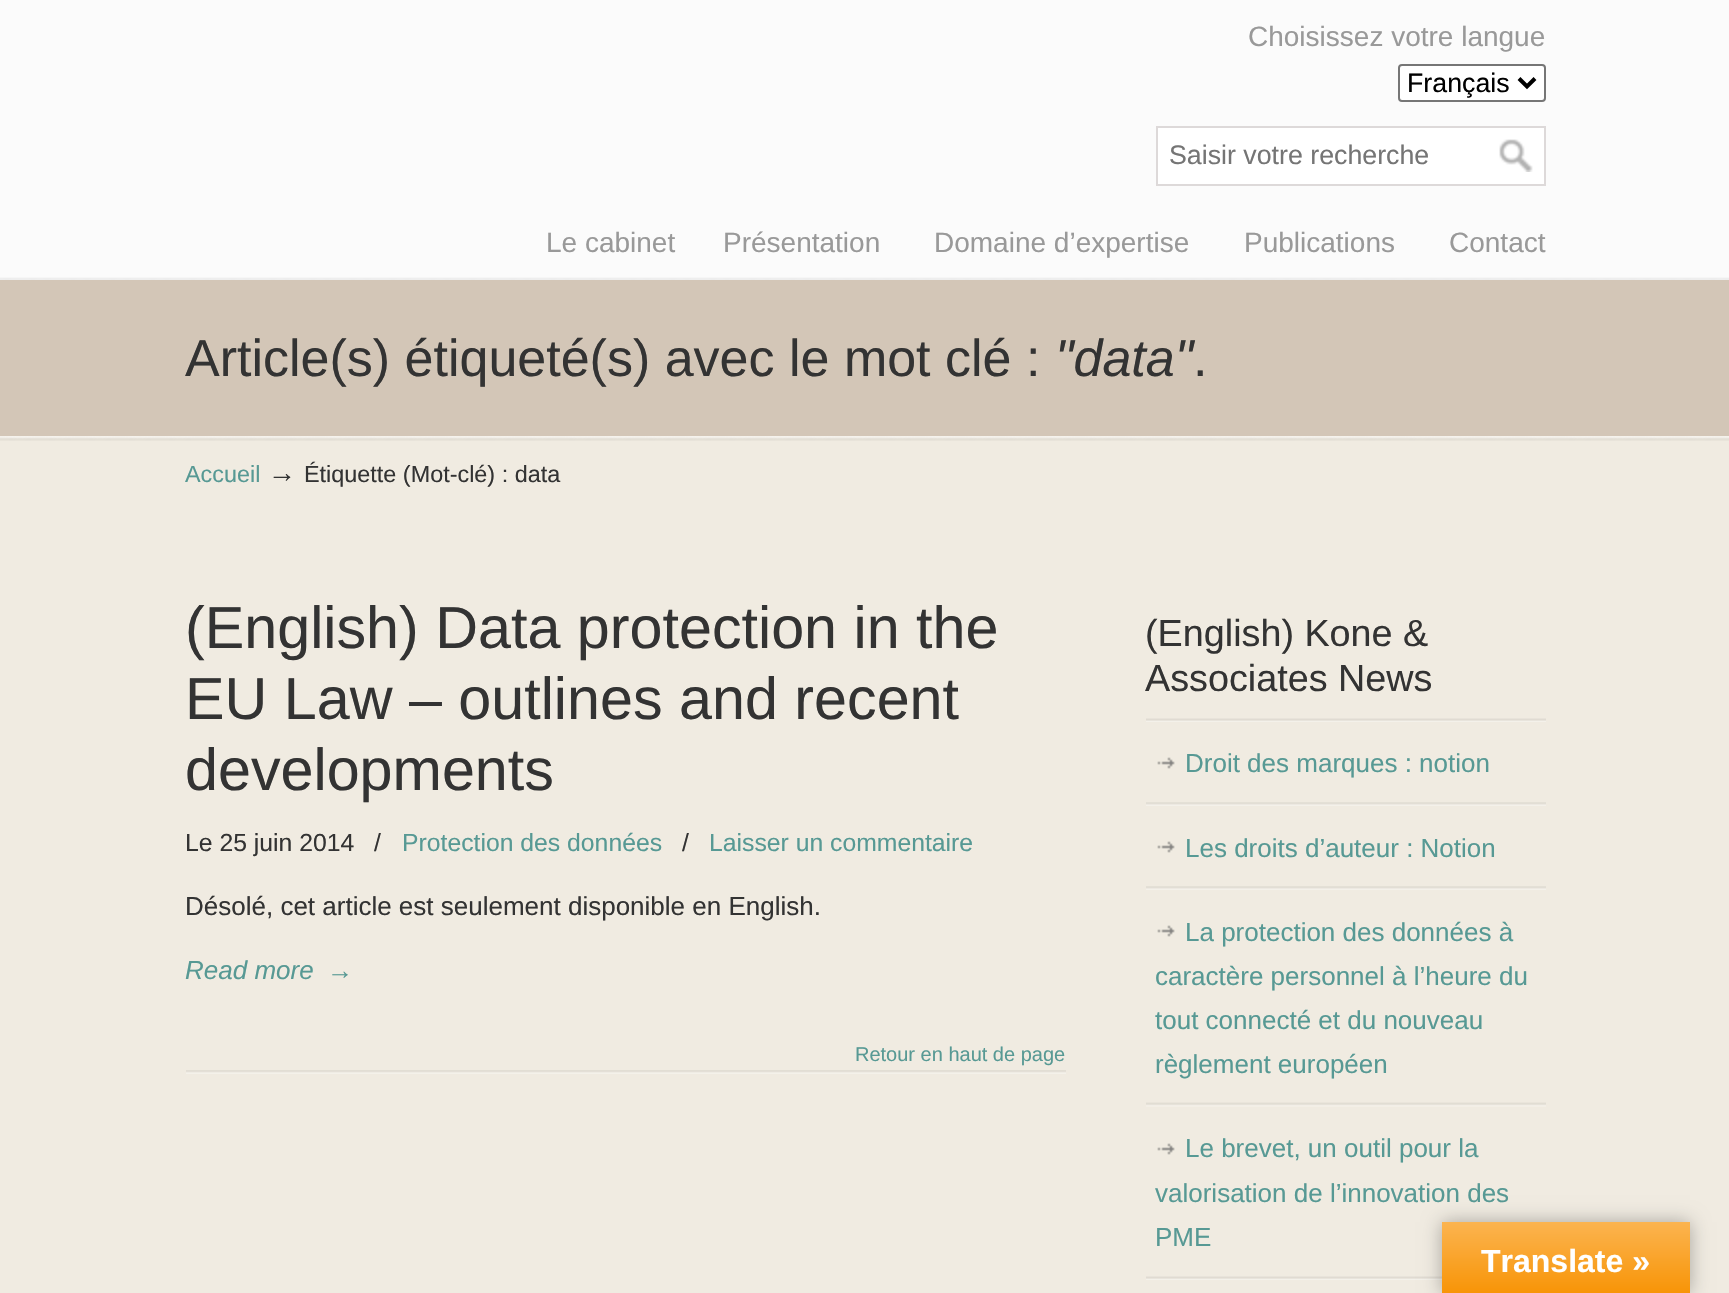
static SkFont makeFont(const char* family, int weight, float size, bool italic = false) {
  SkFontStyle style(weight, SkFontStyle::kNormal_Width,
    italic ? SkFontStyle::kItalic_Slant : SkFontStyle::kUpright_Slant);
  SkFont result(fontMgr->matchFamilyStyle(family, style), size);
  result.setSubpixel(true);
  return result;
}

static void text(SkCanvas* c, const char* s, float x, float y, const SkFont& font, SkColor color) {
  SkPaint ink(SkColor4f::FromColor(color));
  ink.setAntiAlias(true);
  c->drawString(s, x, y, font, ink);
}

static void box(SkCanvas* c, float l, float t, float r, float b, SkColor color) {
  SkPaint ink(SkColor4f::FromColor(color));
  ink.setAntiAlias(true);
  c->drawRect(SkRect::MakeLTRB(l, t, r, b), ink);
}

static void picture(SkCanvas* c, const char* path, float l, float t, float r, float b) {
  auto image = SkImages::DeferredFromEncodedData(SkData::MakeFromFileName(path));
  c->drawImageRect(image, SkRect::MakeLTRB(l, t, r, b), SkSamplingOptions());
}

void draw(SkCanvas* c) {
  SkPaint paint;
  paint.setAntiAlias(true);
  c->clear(0xfffbfbfb);
  SkFont face1 = makeFont("Liberation Sans", 400, 28);
  text(c, "Choisissez votre langue", 1248, 46, face1, 0xff999999);
  paint.setColor(0xffffffff);
  c->drawRoundRect(SkRect::MakeLTRB(1399, 65, 1545, 101), 3, 3, paint);
  paint.setStyle(SkPaint::kStroke_Style);
  paint.setStrokeWidth(2);
  paint.setColor(0xff767676);
  c->drawRoundRect(SkRect::MakeLTRB(1399, 65, 1545, 101), 3, 3, paint);
  paint.setStrokeWidth(4);
  paint.setColor(0xff000000);
  c->drawPath(SkPathBuilder().moveTo(1519, 78.5f).lineTo(1527, 86.5f).lineTo(1535, 78.5f).detach(), paint);
  SkFont face2 = makeFont("Liberation Sans", 400, 26.75f);
  text(c, "Français", 1407, 92, face2, 0xff000000);
  paint.setStyle(SkPaint::kFill_Style);
  paint.setColor(0xffffffff);
  c->drawRect(SkRect::MakeLTRB(1157, 127, 1545, 185), paint);
  paint.setStyle(SkPaint::kStroke_Style);
  paint.setStrokeWidth(2);
  paint.setColor(0xffddd9d9);
  c->drawRect(SkRect::MakeLTRB(1157, 127, 1545, 185), paint);
  text(c, "Saisir votre recherche", 1169, 164, face2, 0xff757575);
  picture(c, "img_01.png", 1499, 139, 1533, 172);
  text(c, "Le cabinet", 546, 252, face1, 0xff999999);
  text(c, "Présentation", 723, 252, face1, 0xff999999);
  text(c, "Domaine d’expertise", 934, 252, face1, 0xff999999);
  text(c, "Publications", 1244, 252, face1, 0xff999999);
  text(c, "Contact", 1449, 252, face1, 0xff999999);
  picture(c, "img_02.png", 0, 277, 1729, 280);
  box(c, 0, 280, 1729, 436, 0xffd3c6b7);
  SkFont face3 = makeFont("Liberation Sans", 400, 52);
  text(c, "Article(s) étiqueté(s) avec le mot clé :", 185, 376, face3, 0xff333333);
  SkFont face4 = makeFont("Liberation Sans", 400, 52, true);
  text(c, "\"data\"", 1055, 376, face4, 0xff333333);
  text(c, ".", 1193, 376, face3, 0xff333333);
  box(c, 0, 436, 1729, 1293, 0xfff0ebe1);
  picture(c, "img_03.png", 0, 436, 1729, 441);
  SkFont face5 = makeFont("Liberation Sans", 400, 23.4f);
  text(c, "Accueil", 185, 482, face5, 0xff579994);
  text(c, "→", 268, 482, face1, 0xff333333);
  text(c, "Étiquette (Mot-clé) : data", 304, 482, face5, 0xff333333);
  SkFont face6 = makeFont("Liberation Sans", 400, 59.25f);
  text(c, "(English) Data protection in the", 185, 648, face6, 0xff333333);
  text(c, "EU Law – outlines and recent", 185, 719, face6, 0xff333333);
  text(c, "developments", 185, 790, face6, 0xff333333);
  SkFont face7 = makeFont("Liberation Sans", 400, 24.75f);
  text(c, "Le 25 juin 2014", 185, 851, face7, 0xff333333);
  text(c, "/", 374, 851, face7, 0xff333333);
  text(c, "Protection des données", 402, 851, face7, 0xff579994);
  text(c, "/", 682, 851, face7, 0xff333333);
  text(c, "Laisser un commentaire", 709, 851, face7, 0xff579994);
  SkFont face8 = makeFont("Liberation Sans", 400, 26);
  text(c, "Désolé, cet article est seulement disponible en English.", 185, 915, face8, 0xff333333);
  SkFont face9 = makeFont("Liberation Sans", 400, 26, true);
  text(c, "Read more", 185, 979, face9, 0xff579994);
  text(c, "→", 327, 979, face8, 0xff579994);
  picture(c, "img_04.png", 186, 1070, 1066, 1074);
  SkFont face10 = makeFont("Liberation Sans", 400, 20);
  text(c, "Retour en haut de page", 855, 1061, face10, 0xff579994);
  picture(c, "img_05.png", 1146, 718, 1546, 722);
  SkFont face11 = makeFont("Liberation Sans", 400, 37.75f);
  text(c, "(English) Kone &", 1145, 646, face11, 0xff333333);
  text(c, "Associates News", 1145, 691, face11, 0xff333333);
  picture(c, "img_06.png", 1146, 802, 1546, 806);
  picture(c, "img_07.png", 1157, 757, 1175, 769);
  text(c, "Droit des marques : notion", 1185, 772, face8, 0xff579994);
  picture(c, "img_06.png", 1146, 886, 1546, 890);
  picture(c, "img_07.png", 1157, 841, 1175, 853);
  text(c, "Les droits d’auteur : Notion", 1185, 857, face8, 0xff579994);
  picture(c, "img_08.png", 1146, 1102, 1546, 1107);
  picture(c, "img_07.png", 1157, 925, 1175, 937);
  text(c, "La protection des données à", 1185, 941, face8, 0xff579994);
  text(c, "caractère personnel à l’heure du", 1155, 985, face8, 0xff579994);
  text(c, "tout connecté et du nouveau", 1155, 1029, face8, 0xff579994);
  text(c, "règlement européen", 1155, 1073, face8, 0xff579994);
  picture(c, "img_09.png", 1146, 1276, 1442, 1280);
  picture(c, "img_07.png", 1157, 1143, 1175, 1155);
  text(c, "Le brevet, un outil pour la", 1185, 1157, face8, 0xff579994);
  text(c, "valorisation de l’innovation des", 1155, 1202, face8, 0xff579994);
  text(c, "PME", 1155, 1246, face8, 0xff579994);
  paint.setStyle(SkPaint::kFill_Style);
  paint.setColor(0x4d000000);
  paint.setMaskFilter(SkMaskFilter::MakeBlur(kNormal_SkBlurStyle, 9));
  c->drawRect(SkRect::MakeLTRB(1442, 1222, 1690, 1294), paint);
  paint.setMaskFilter(nullptr);
  {
    const SkColor colors[] = {0xfffbb450, 0xfff89406};
    const float stops[] = {0, 1};
    const SkPoint ends[] = {{1566, 1222}, {1566, 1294}};
    paint.setShader(SkGradientShader::MakeLinear(ends, colors, stops, 2, SkTileMode::kClamp));
    paint.setAlpha(255);
  }
  c->drawRect(SkRect::MakeLTRB(1442, 1222, 1690, 1293), paint);
  SkFont face12 = makeFont("Liberation Sans", 700, 32);
  text(c, "Translate »", 1481, 1272, face12, 0xffffffff);
}
